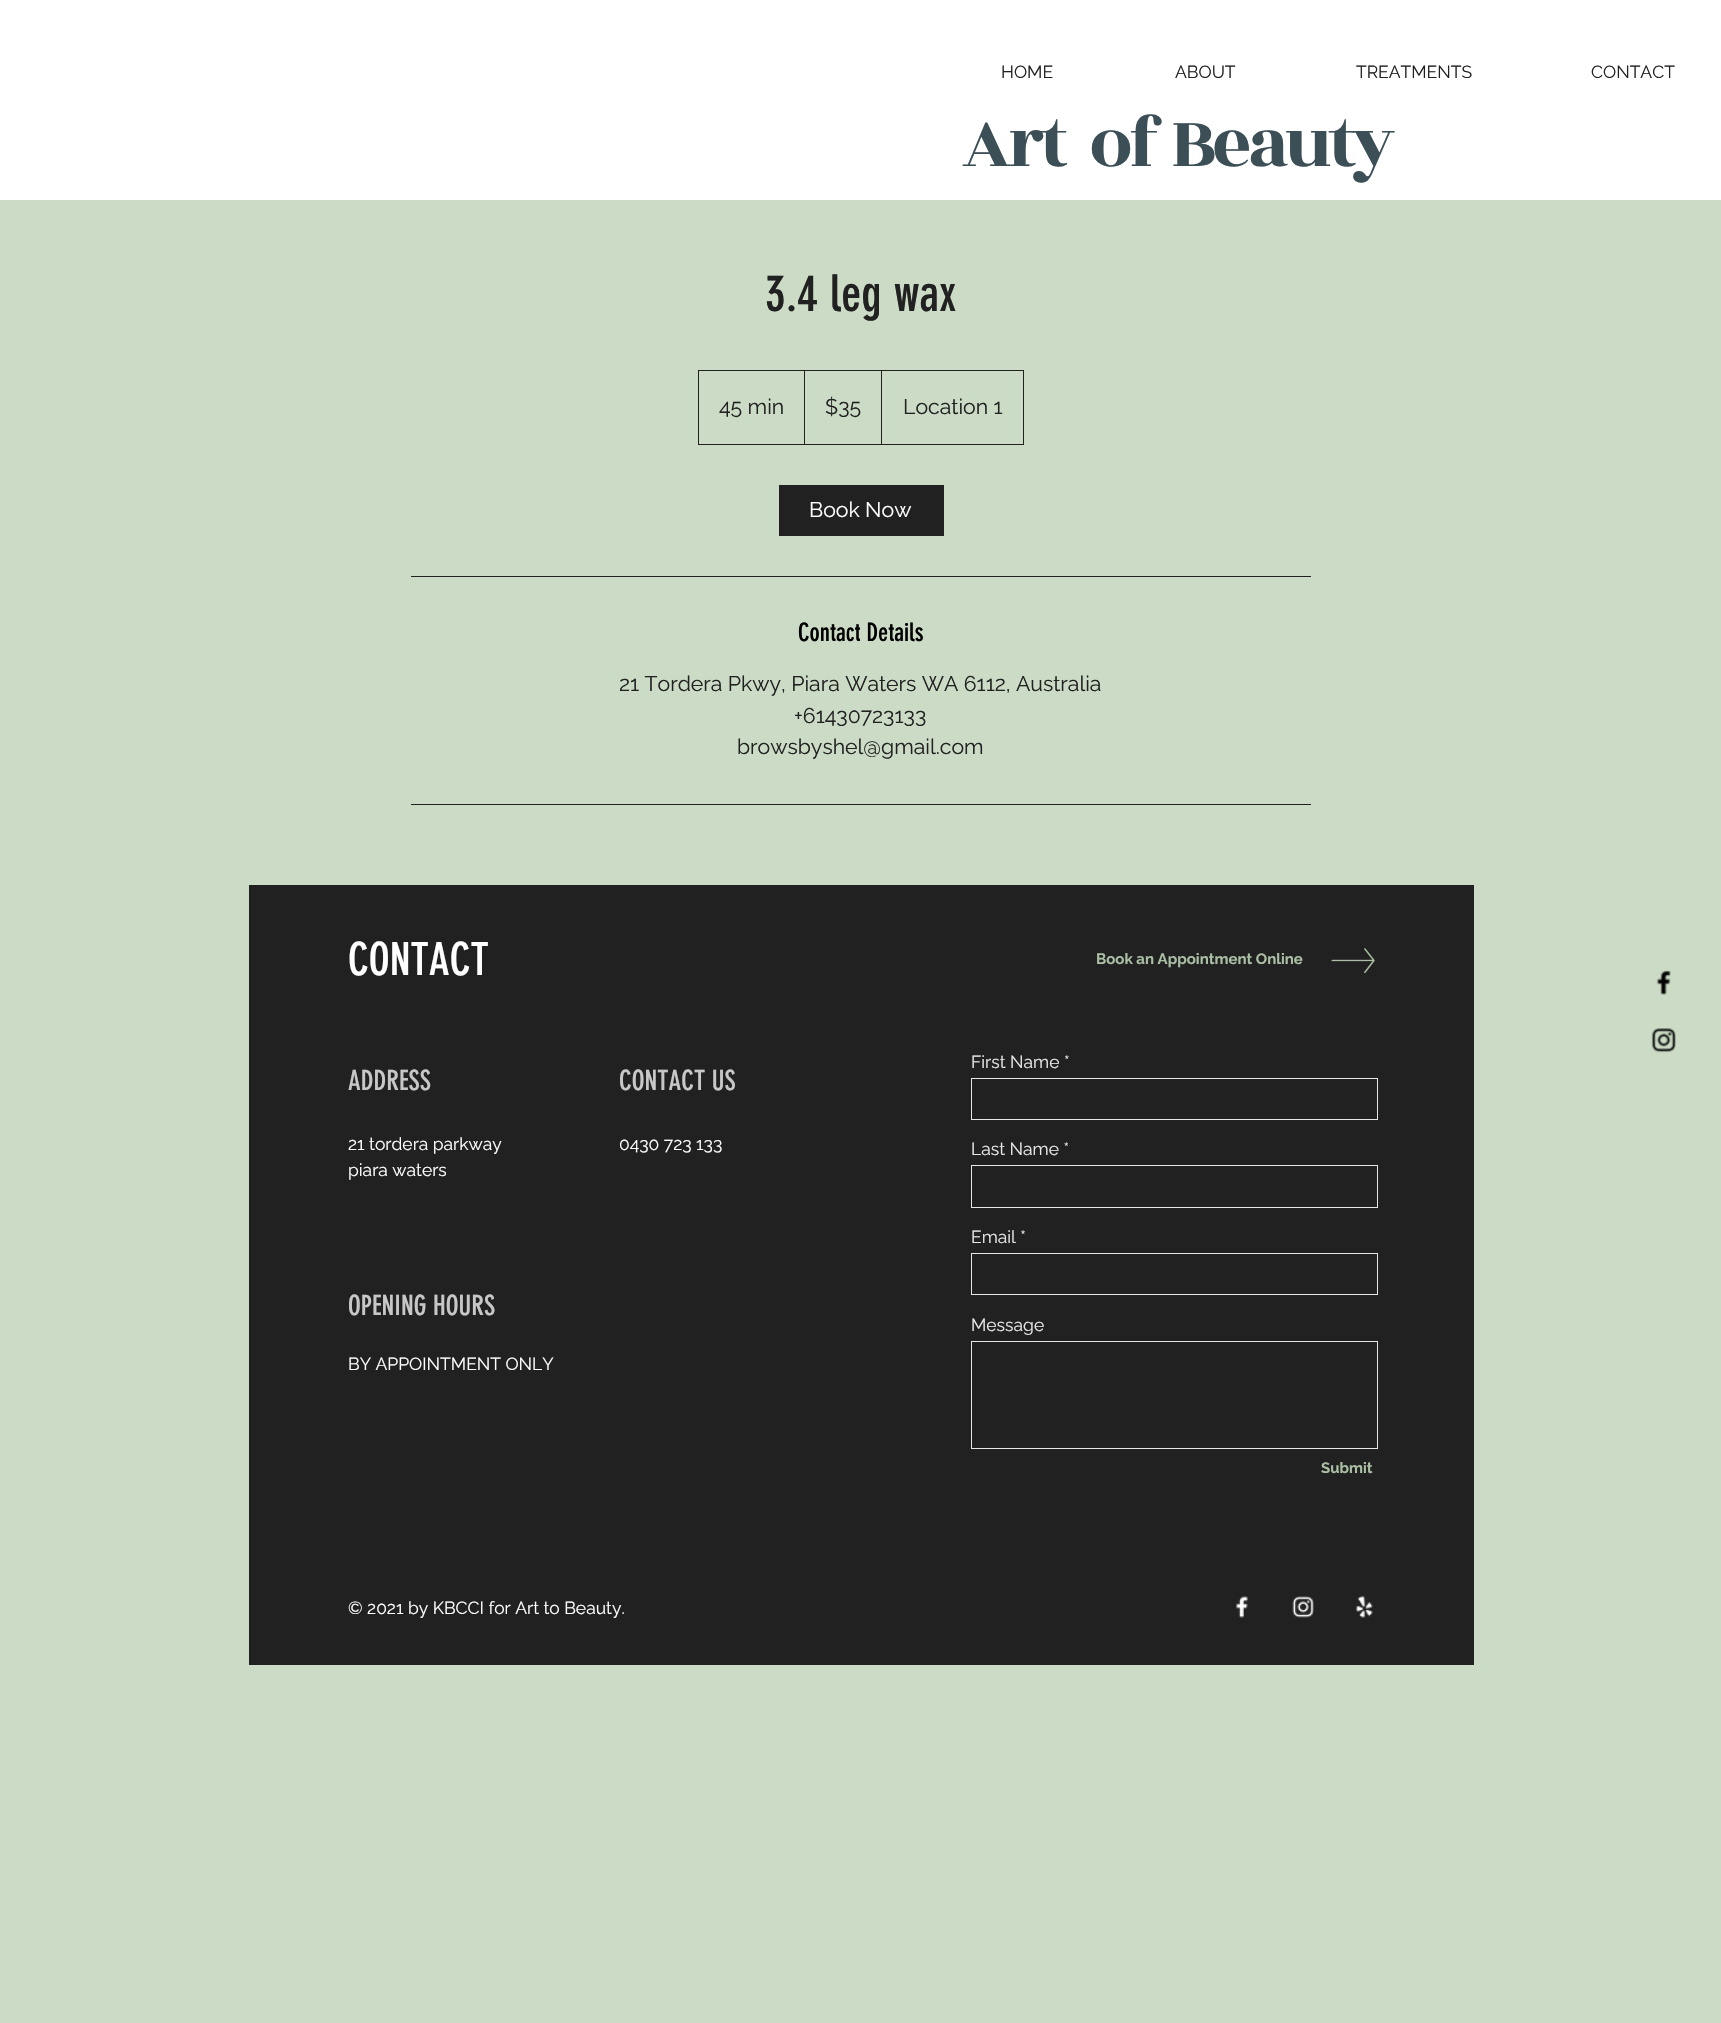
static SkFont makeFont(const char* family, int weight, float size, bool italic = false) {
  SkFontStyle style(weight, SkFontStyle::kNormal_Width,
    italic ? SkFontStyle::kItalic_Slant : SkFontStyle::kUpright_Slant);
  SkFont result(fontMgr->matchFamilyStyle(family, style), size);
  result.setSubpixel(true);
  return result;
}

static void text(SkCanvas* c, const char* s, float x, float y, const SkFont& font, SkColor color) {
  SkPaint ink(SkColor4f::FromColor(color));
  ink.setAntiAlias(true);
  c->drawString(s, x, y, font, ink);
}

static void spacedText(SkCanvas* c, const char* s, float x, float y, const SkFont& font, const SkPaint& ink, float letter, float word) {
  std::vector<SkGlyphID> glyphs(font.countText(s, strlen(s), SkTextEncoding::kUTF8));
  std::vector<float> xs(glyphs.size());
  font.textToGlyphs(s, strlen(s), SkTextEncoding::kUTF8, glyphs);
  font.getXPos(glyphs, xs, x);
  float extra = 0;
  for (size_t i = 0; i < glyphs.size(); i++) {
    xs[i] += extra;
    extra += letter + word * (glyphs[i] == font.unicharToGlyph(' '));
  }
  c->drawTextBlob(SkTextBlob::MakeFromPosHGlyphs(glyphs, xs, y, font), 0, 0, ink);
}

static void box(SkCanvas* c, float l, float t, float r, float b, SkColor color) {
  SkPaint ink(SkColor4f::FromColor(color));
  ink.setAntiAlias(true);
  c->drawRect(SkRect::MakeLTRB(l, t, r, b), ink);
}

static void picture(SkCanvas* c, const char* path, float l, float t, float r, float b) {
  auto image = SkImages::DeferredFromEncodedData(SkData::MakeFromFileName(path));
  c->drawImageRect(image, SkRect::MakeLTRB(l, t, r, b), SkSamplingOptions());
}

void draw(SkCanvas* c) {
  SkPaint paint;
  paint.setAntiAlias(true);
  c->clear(0xffcbdbc5);
  box(c, 0, 0, 1721, 200, 0xffffffff);
  SkFont face1 = makeFont("Raleway", 400, 17.5f);
  text(c, "HOME", 1001, 78, face1, 0xff212121);
  text(c, "ABOUT", 1175, 78, face1, 0xff212121);
  text(c, "TREATMENTS", 1356, 78, face1, 0xff212121);
  text(c, "CONTACT", 1591, 78, face1, 0xff212121);
  SkFont face2 = makeFont("Rozha One", 400, 76.25f);
  paint.setColor(0xff3c4f57);
  spacedText(c, "Art  of Beauty", 962, 166, face2, paint, -3.75f, 0);
  SkFont face3 = makeFont("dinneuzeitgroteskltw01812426", 400, 50);
  text(c, "3.4 leg wax", 765, 311, face3, 0xff212121);
  paint.setStyle(SkPaint::kStroke_Style);
  paint.setStrokeWidth(1);
  paint.setColor(0xff212121);
  c->drawRect(SkRect::MakeLTRB(698.5f, 370.5f, 1023.5f, 444.5f), paint);
  SkFont face4 = makeFont("Raleway", 400, 21.25f);
  text(c, "45 min", 719, 414, face4, 0xff212121);
  box(c, 804, 371, 805, 444, 0xff212121);
  text(c, "$35", 825, 414, face4, 0xff212121);
  box(c, 881, 371, 882, 444, 0xff212121);
  text(c, "Location 1", 903, 414, face4, 0xff212121);
  box(c, 779, 485, 944, 536, 0xff212121);
  text(c, "Book Now", 809, 517, face4, 0xffffffff);
  box(c, 411, 576, 1311, 577, 0xff212121);
  SkFont face5 = makeFont("dinneuzeitgroteskltw01812426", 400, 25);
  text(c, "Contact Details", 798, 641, face5, 0xff000000);
  text(c, "21 Tordera Pkwy, Piara Waters WA 6112, Australia", 619, 691, face4, 0xff212121);
  text(c, "+61430723133", 794, 723, face4, 0xff212121);
  text(c, "browsbyshel@gmail.com", 737, 754, face4, 0xff212121);
  box(c, 411, 804, 1311, 805, 0xff212121);
  box(c, 249, 885, 1474, 1665, 0xff212121);
  SkFont face6 = makeFont("dinneuzeitgroteskltw01812426", 400, 45);
  text(c, "CONTACT", 348, 975, face6, 0xffffffff);
  SkFont face7 = makeFont("Raleway", 700, 15);
  text(c, "Book an Appointment Online", 1096, 964, face7, 0xffaabfa4);
  picture(c, "img_01.png", 1331, 948, 1375, 974);
  SkFont face8 = makeFont("dinneuzeitgroteskltw01812426", 400, 27.5f);
  text(c, "ADDRESS", 348, 1090, face8, 0xffc7c7c7);
  text(c, "21 tordera parkway", 348, 1150, face1, 0xffffffff);
  text(c, "piara waters", 348, 1176, face1, 0xffffffff);
  text(c, "CONTACT US", 619, 1090, face8, 0xffc7c7c7);
  text(c, "0430 723 133", 619, 1150, face1, 0xffffffff);
  text(c, "First Name *", 971, 1068, face1, 0xffe8e6e6);
  paint.setColor(0xffe8e6e6);
  c->drawRect(SkRect::MakeLTRB(971.5f, 1078.5f, 1377.5f, 1119.5f), paint);
  text(c, "Last Name *", 971, 1155, face1, 0xffe8e6e6);
  c->drawRect(SkRect::MakeLTRB(971.5f, 1165.5f, 1377.5f, 1207.5f), paint);
  text(c, "Email *", 971, 1243, face1, 0xffe8e6e6);
  c->drawRect(SkRect::MakeLTRB(971.5f, 1253.5f, 1377.5f, 1294.5f), paint);
  text(c, "Message", 971, 1331, face1, 0xffe8e6e6);
  c->drawRect(SkRect::MakeLTRB(971.5f, 1341.5f, 1377.5f, 1448.5f), paint);
  text(c, "Submit", 1321, 1473, face7, 0xffaabfa4);
  text(c, "OPENING HOURS", 348, 1315, face8, 0xffc7c7c7);
  text(c, "BY APPOINTMENT ONLY", 348, 1370, face1, 0xffffffff);
  text(c, "© 2021 by KBCCI for Art to Beauty.", 348, 1614, face1, 0xffffffff);
  picture(c, "img_02.png", 1236, 1596, 1248, 1618);
  picture(c, "img_03.png", 1292, 1596, 1314, 1618);
  picture(c, "img_04.png", 1356, 1596, 1373, 1618);
  picture(c, "img_05.png", 1656, 970, 1671, 995);
  picture(c, "img_06.png", 1651, 1028, 1676, 1053);
}
